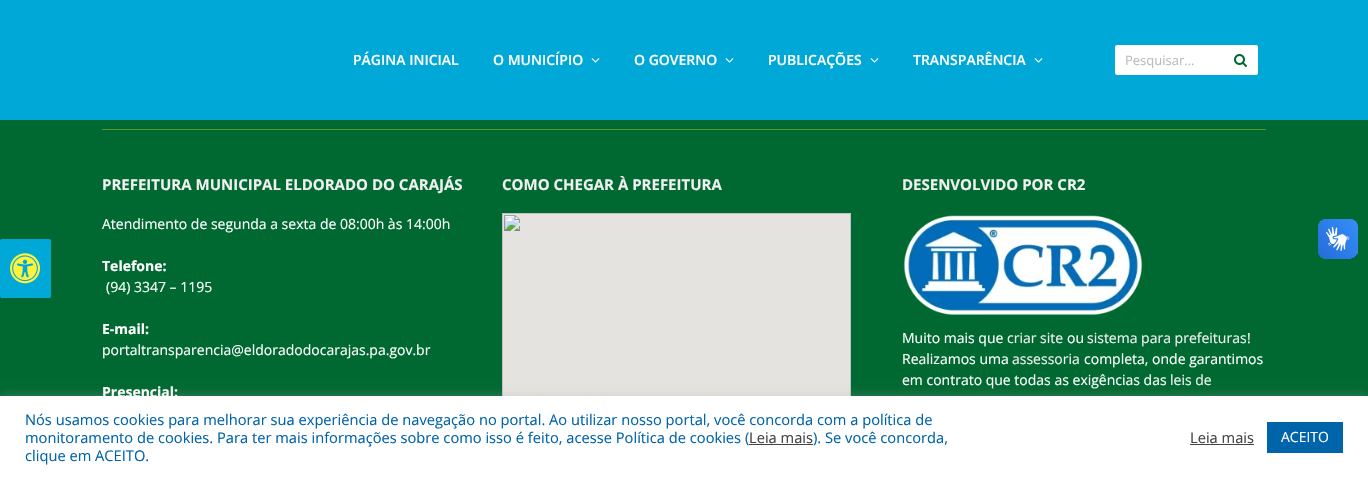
static SkFont makeFont(const char* family, int weight, float size, bool italic = false) {
  SkFontStyle style(weight, SkFontStyle::kNormal_Width,
    italic ? SkFontStyle::kItalic_Slant : SkFontStyle::kUpright_Slant);
  SkFont result(fontMgr->matchFamilyStyle(family, style), size);
  result.setSubpixel(true);
  return result;
}

static void text(SkCanvas* c, const char* s, float x, float y, const SkFont& font, SkColor color) {
  SkPaint ink(SkColor4f::FromColor(color));
  ink.setAntiAlias(true);
  c->drawString(s, x, y, font, ink);
}

static void box(SkCanvas* c, float l, float t, float r, float b, SkColor color) {
  SkPaint ink(SkColor4f::FromColor(color));
  ink.setAntiAlias(true);
  c->drawRect(SkRect::MakeLTRB(l, t, r, b), ink);
}

static void roundBox(SkCanvas* c, float l, float t, float r, float b, float radius, SkColor color) {
  SkPaint ink(SkColor4f::FromColor(color));
  ink.setAntiAlias(true);
  c->drawRoundRect(SkRect::MakeLTRB(l, t, r, b), radius, radius, ink);
}

static void picture(SkCanvas* c, const char* path, float l, float t, float r, float b) {
  auto image = SkImages::DeferredFromEncodedData(SkData::MakeFromFileName(path));
  c->drawImageRect(image, SkRect::MakeLTRB(l, t, r, b), SkSamplingOptions());
}

void draw(SkCanvas* c) {
  SkPaint paint;
  paint.setAntiAlias(true);
  c->clear(0xff006831);
  box(c, 0, 0, 1368, 120, 0xff00a8d7);
  SkFont face1 = makeFont("Open Sans", 600, 14);
  text(c, "PÁGINA INICIAL", 353, 65, face1, 0xffffffff);
  text(c, "O MUNICÍPIO", 493, 65, face1, 0xffffffff);
  picture(c, "img_01.png", 591, 58, 600, 63);
  text(c, "O GOVERNO", 634, 65, face1, 0xffffffff);
  picture(c, "img_01.png", 725, 58, 734, 63);
  text(c, "PUBLICAÇÕES", 768, 65, face1, 0xffffffff);
  picture(c, "img_01.png", 870, 58, 879, 63);
  text(c, "TRANSPARÊNCIA", 913, 65, face1, 0xffffffff);
  picture(c, "img_01.png", 1034, 58, 1043, 63);
  roundBox(c, 1115, 45, 1258, 75, 2, 0xffffffff);
  SkFont face2 = makeFont("Open Sans", 400, 13);
  text(c, "Pesquisar...", 1125, 65, face2, 0xffbbbbbb);
  picture(c, "img_02.png", 1234, 54, 1247, 67);
  paint.setColor(0x29000000);
  paint.setMaskFilter(SkMaskFilter::MakeBlur(kNormal_SkBlurStyle, 3.5f));
  c->drawRect(SkRect::MakeLTRB(4, 245, 47, 296), paint);
  paint.setMaskFilter(nullptr);
  roundBox(c, 0, 239, 51, 298, 2, 0xff00a8d7);
  box(c, 50, 240, 51, 297, 0xff00a8d7);
  box(c, 1, 297, 50, 298, 0xff00a8d7);
  picture(c, "img_03.png", 10, 253, 40, 284);
  box(c, 102, 129, 1266, 130, 0xff539926);
  SkFont face3 = makeFont("Open Sans", 700, 15);
  text(c, "PREFEITURA MUNICIPAL ELDORADO DO CARAJÁS", 102, 190, face3, 0xfff0f0f0);
  SkFont face4 = makeFont("Open Sans", 400, 14);
  text(c, "Atendimento de segunda a sexta de 08:00h às 14:00h", 102, 229, face4, 0xffffffff);
  SkFont face5 = makeFont("Open Sans", 700, 14);
  text(c, "Telefone:", 102, 271, face5, 0xffffffff);
  text(c, "(94) 3347 – 1195", 106, 292, face4, 0xffffffff);
  text(c, "E-mail:", 102, 334, face5, 0xffffffff);
  text(c, "portaltransparencia@eldoradodocarajas.pa.gov.br", 102, 355, face4, 0xffffffff);
  text(c, "Presencial:", 102, 397, face5, 0xffffffff);
  text(c, "COMO CHEGAR À PREFEITURA", 502, 190, face3, 0xfff0f0f0);
  picture(c, "img_04.png", 502, 213, 851, 396);
  text(c, "DESENVOLVIDO POR CR2", 902, 190, face3, 0xfff0f0f0);
  picture(c, "img_05.png", 903, 215, 1143, 315);
  text(c, "Muito mais que", 902, 343, face4, 0xffffffff);
  text(c, "criar site", 1007, 343, face4, 0xfff0f0f0);
  text(c, "ou", 1067, 343, face4, 0xffffffff);
  text(c, "sistema para prefeituras", 1087, 343, face4, 0xfff0f0f0);
  text(c, "!", 1247, 343, face4, 0xffffffff);
  text(c, "Realizamos uma", 902, 364, face4, 0xffffffff);
  text(c, "assessoria", 1012, 364, face4, 0xfff0f0f0);
  text(c, "completa, onde garantimos", 1084, 364, face4, 0xffffffff);
  text(c, "em contrato que todas as exigências das", 902, 385, face4, 0xffffffff);
  text(c, "leis de", 1170, 385, face4, 0xfff0f0f0);
  picture(c, "img_06.png", 1318, 219, 1358, 259);
  picture(c, "img_07.png", 1318, 219, 1358, 259);
  paint.setColor(0x4dacabab);
  paint.setMaskFilter(SkMaskFilter::MakeBlur(kNormal_SkBlurStyle, 5));
  c->drawRect(SkRect::MakeLTRB(0, 395, 1368, 477), paint);
  paint.setMaskFilter(nullptr);
  box(c, 0, 396, 1368, 478, 0xffffffff);
  SkFont face6 = makeFont("Open Sans", 400, 14.67f);
  text(c, "Nós usamos cookies para melhorar sua experiência de navegação no portal. Ao utilizar nosso portal, você concorda com a política de", 25, 425, face6, 0xff0064ab);
  text(c, "monitoramento de cookies. Para ter mais informações sobre como isso é feito, acesse Política de cookies (", 25, 443, face6, 0xff0064ab);
  text(c, "Leia mais", 749, 443, face6, 0xff444444);
  box(c, 749, 444, 813, 445, 0xff444444);
  text(c, "). Se você concorda,", 813, 443, face6, 0xff0064ab);
  text(c, "clique em ACEITO.", 25, 461, face6, 0xff0064ab);
  text(c, "Leia mais", 1190, 443, face6, 0xff444444);
  box(c, 1190, 444, 1254, 445, 0xff444444);
  box(c, 1267, 422, 1343, 453, 0xff0064ab);
  text(c, "ACEITO", 1281, 442, face4, 0xffffffff);
}
